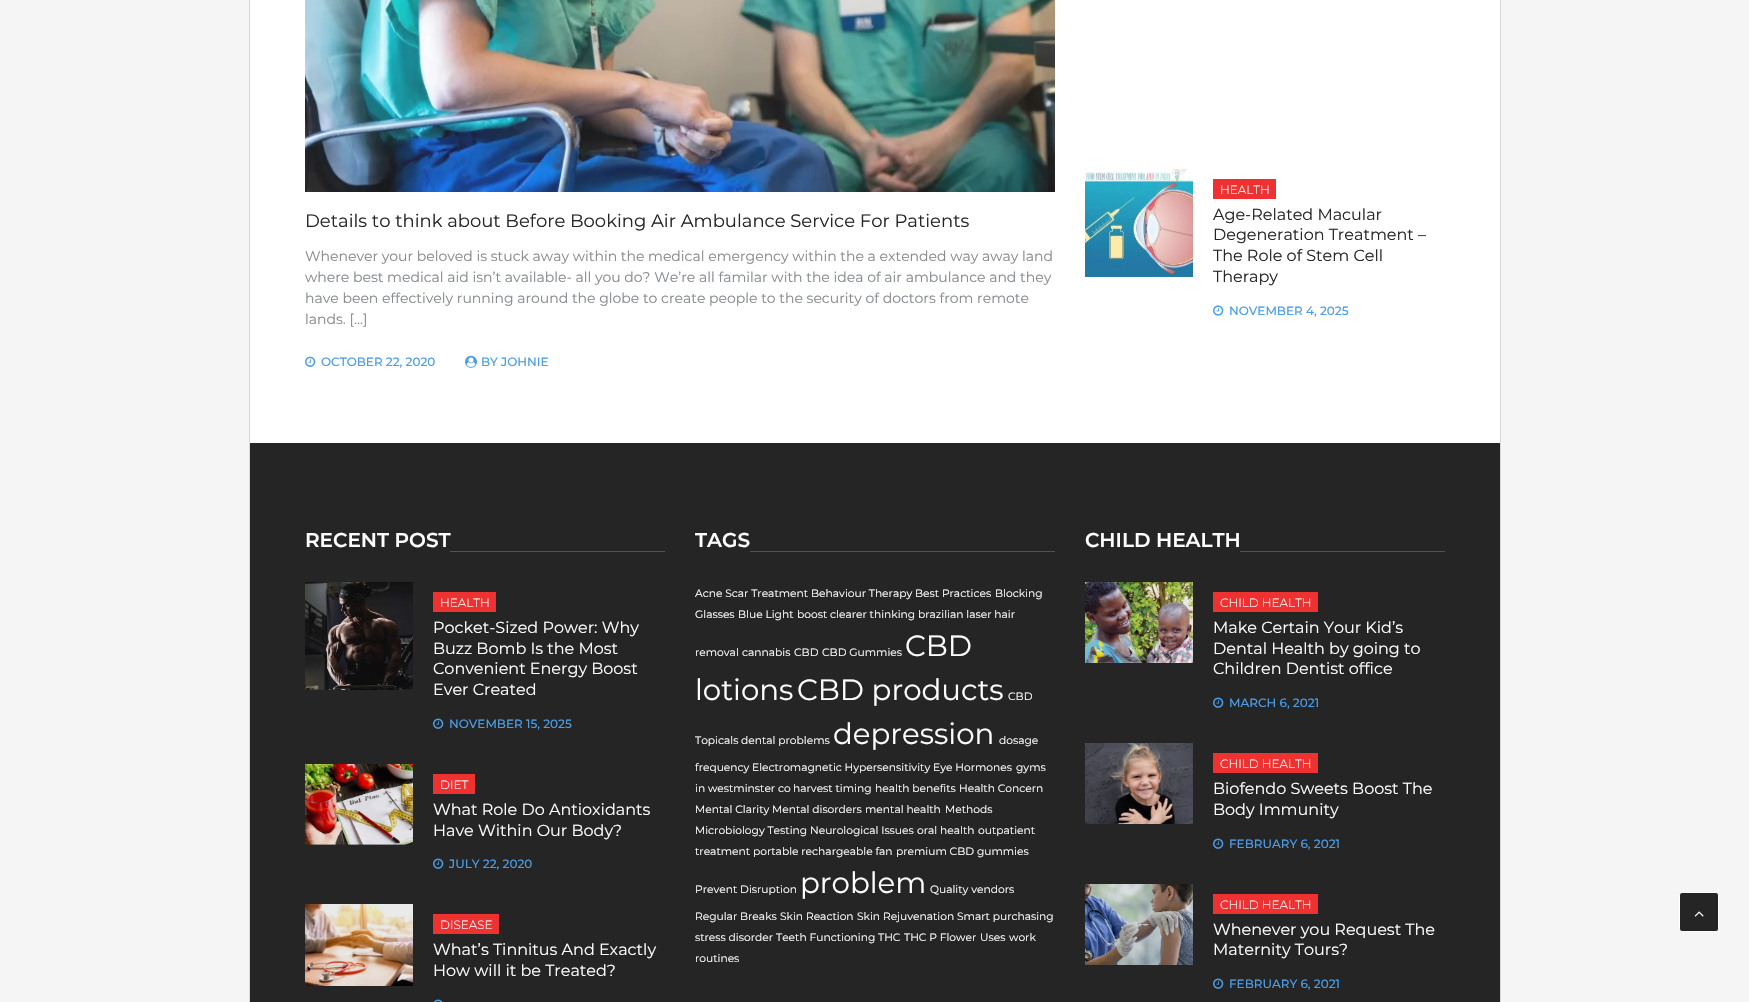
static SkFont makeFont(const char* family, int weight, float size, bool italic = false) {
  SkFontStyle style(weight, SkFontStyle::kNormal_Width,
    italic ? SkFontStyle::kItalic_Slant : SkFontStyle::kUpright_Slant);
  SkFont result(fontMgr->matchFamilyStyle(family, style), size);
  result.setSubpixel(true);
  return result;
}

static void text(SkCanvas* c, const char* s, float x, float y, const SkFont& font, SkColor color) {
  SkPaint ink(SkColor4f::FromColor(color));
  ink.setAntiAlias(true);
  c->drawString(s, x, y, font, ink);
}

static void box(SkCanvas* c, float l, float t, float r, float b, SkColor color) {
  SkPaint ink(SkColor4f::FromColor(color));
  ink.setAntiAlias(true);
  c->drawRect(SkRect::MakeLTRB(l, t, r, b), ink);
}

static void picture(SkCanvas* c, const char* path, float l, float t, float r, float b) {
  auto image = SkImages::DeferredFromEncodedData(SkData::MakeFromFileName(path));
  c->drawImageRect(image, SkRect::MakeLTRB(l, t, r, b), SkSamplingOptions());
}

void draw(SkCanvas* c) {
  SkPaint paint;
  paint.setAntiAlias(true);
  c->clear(0xfff5f5f5);
  box(c, 250, 0, 1500, 443, 0xffffffff);
  box(c, 1500, 0, 1501, 1002, 0xffd7d7d7);
  box(c, 249, 0, 250, 1002, 0xffd7d7d7);
  picture(c, "img_01.png", 305, 0, 1055, 192);
  SkFont face1 = makeFont("Montserrat", 400, 18);
  text(c, "Details to think about Before Booking Air Ambulance Service For Patients", 305, 227, face1, 0xff252525);
  SkFont face2 = makeFont("Montserrat", 400, 14);
  text(c, "Whenever your beloved is stuck away within the medical emergency within the a extended way away land", 305, 261, face2, 0xff85898e);
  text(c, "where best medical aid isn’t available- all you do? We’re all familar with the idea of air ambulance and they", 305, 282, face2, 0xff85898e);
  text(c, "have been effectively running around the globe to create people to the security of doctors from remote", 305, 303, face2, 0xff85898e);
  text(c, "lands. […]", 305, 324, face2, 0xff85898e);
  picture(c, "img_02.png", 305, 356, 316, 367);
  SkFont face3 = makeFont("Montserrat", 500, 12);
  text(c, "OCTOBER 22, 2020", 321, 366, face3, 0xff4b9de5);
  picture(c, "img_03.png", 465, 355, 477, 368);
  text(c, "BY JOHNIE", 481, 366, face3, 0xff4b9de5);
  picture(c, "img_04.png", 1085, 169, 1193, 277);
  box(c, 1213, 179, 1276, 199, 0xffee3232);
  SkFont face4 = makeFont("Montserrat", 300, 12);
  text(c, "HEALTH", 1220, 194, face4, 0xffffffff);
  SkFont face5 = makeFont("Montserrat", 400, 16);
  text(c, "Age-Related Macular", 1213, 220, face5, 0xff252525);
  text(c, "Degeneration Treatment –", 1213, 240, face5, 0xff252525);
  text(c, "The Role of Stem Cell", 1213, 261, face5, 0xff252525);
  text(c, "Therapy", 1213, 282, face5, 0xff252525);
  picture(c, "img_05.png", 1213, 305, 1224, 316);
  text(c, "NOVEMBER 4, 2025", 1229, 315, face3, 0xff4b9de5);
  box(c, 250, 443, 1500, 1002, 0xff252525);
  box(c, 450, 551, 665, 552, 0xff525252);
  SkFont face6 = makeFont("Montserrat", 600, 20);
  text(c, "RECENT POST", 305, 547, face6, 0xffffffff);
  picture(c, "img_06.png", 305, 582, 413, 690);
  box(c, 433, 592, 496, 612, 0xffee3232);
  text(c, "HEALTH", 440, 607, face4, 0xffffffff);
  text(c, "Pocket-Sized Power: Why", 433, 633, face5, 0xffffffff);
  text(c, "Buzz Bomb Is the Most", 433, 654, face5, 0xffffffff);
  text(c, "Convenient Energy Boost", 433, 674, face5, 0xffffffff);
  text(c, "Ever Created", 433, 695, face5, 0xffffffff);
  picture(c, "img_07.png", 433, 718, 444, 729);
  text(c, "NOVEMBER 15, 2025", 449, 728, face3, 0xff4b9de5);
  picture(c, "img_08.png", 305, 764, 413, 845);
  box(c, 433, 774, 475, 794, 0xffee3232);
  text(c, "DIET", 440, 789, face4, 0xffffffff);
  text(c, "What Role Do Antioxidants", 433, 815, face5, 0xffffffff);
  text(c, "Have Within Our Body?", 433, 836, face5, 0xffffffff);
  picture(c, "img_07.png", 433, 858, 444, 869);
  text(c, "JULY 22, 2020", 449, 868, face3, 0xff4b9de5);
  picture(c, "img_09.png", 305, 904, 413, 986);
  box(c, 433, 914, 499, 934, 0xffee3232);
  text(c, "DISEASE", 440, 929, face4, 0xffffffff);
  text(c, "What’s Tinnitus And Exactly", 433, 955, face5, 0xffffffff);
  text(c, "How will it be Treated?", 433, 976, face5, 0xffffffff);
  picture(c, "img_10.png", 433, 999, 443, 1002);
  box(c, 750, 551, 1055, 552, 0xff525252);
  text(c, "TAGS", 695, 547, face6, 0xffffffff);
  SkFont face7 = makeFont("Montserrat", 400, 10.7f);
  text(c, "Acne Scar Treatment", 695, 597, face7, 0xffffffff);
  text(c, "Behaviour Therapy", 811, 597, face7, 0xffffffff);
  text(c, "Best Practices", 915, 597, face7, 0xffffffff);
  text(c, "Blocking", 995, 597, face7, 0xffffffff);
  text(c, "Glasses", 695, 618, face7, 0xffffffff);
  text(c, "Blue Light", 738, 618, face7, 0xffffffff);
  text(c, "boost clearer thinking", 797, 618, face7, 0xffffffff);
  text(c, "brazilian laser hair", 918, 618, face7, 0xffffffff);
  text(c, "removal", 695, 656, face7, 0xffffffff);
  text(c, "cannabis", 742, 656, face7, 0xffffffff);
  text(c, "CBD", 794, 656, face7, 0xffffffff);
  text(c, "CBD Gummies", 822, 656, face7, 0xffffffff);
  SkFont face8 = makeFont("Montserrat", 400, 29.25f);
  text(c, "CBD", 905, 656, face8, 0xffffffff);
  text(c, "lotions", 695, 700, face8, 0xffffffff);
  text(c, "CBD products", 797, 700, face8, 0xffffffff);
  text(c, "CBD", 1008, 700, face7, 0xffffffff);
  text(c, "Topicals", 695, 744, face7, 0xffffffff);
  text(c, "dental problems", 741, 744, face7, 0xffffffff);
  text(c, "depression", 833, 744, face8, 0xffffffff);
  text(c, "dosage", 999, 744, face7, 0xffffffff);
  text(c, "frequency", 695, 771, face7, 0xffffffff);
  text(c, "Electromagnetic Hypersensitivity", 752, 771, face7, 0xffffffff);
  text(c, "Eye Hormones", 933, 771, face7, 0xffffffff);
  text(c, "gyms", 1016, 771, face7, 0xffffffff);
  text(c, "in westminster co", 695, 792, face7, 0xffffffff);
  text(c, "harvest timing", 793, 792, face7, 0xffffffff);
  text(c, "health benefits", 875, 792, face7, 0xffffffff);
  text(c, "Health Concern", 959, 792, face7, 0xffffffff);
  text(c, "Mental Clarity", 695, 813, face7, 0xffffffff);
  text(c, "Mental disorders", 772, 813, face7, 0xffffffff);
  text(c, "mental health", 865, 813, face7, 0xffffffff);
  text(c, "Methods", 945, 813, face7, 0xffffffff);
  text(c, "Microbiology Testing", 695, 834, face7, 0xffffffff);
  text(c, "Neurological Issues", 810, 834, face7, 0xffffffff);
  text(c, "oral health", 917, 834, face7, 0xffffffff);
  text(c, "outpatient", 978, 834, face7, 0xffffffff);
  text(c, "treatment", 695, 855, face7, 0xffffffff);
  text(c, "portable rechargeable fan", 753, 855, face7, 0xffffffff);
  text(c, "premium CBD gummies", 896, 855, face7, 0xffffffff);
  text(c, "Prevent Disruption", 695, 893, face7, 0xffffffff);
  text(c, "problem", 800, 893, face8, 0xffffffff);
  text(c, "Quality vendors", 930, 893, face7, 0xffffffff);
  text(c, "Regular Breaks", 695, 920, face7, 0xffffffff);
  text(c, "Skin Reaction", 780, 920, face7, 0xffffffff);
  text(c, "Skin Rejuvenation", 857, 920, face7, 0xffffffff);
  text(c, "Smart purchasing", 957, 920, face7, 0xffffffff);
  text(c, "stress disorder", 695, 941, face7, 0xffffffff);
  text(c, "Teeth Functioning", 776, 941, face7, 0xffffffff);
  text(c, "THC", 878, 941, face7, 0xffffffff);
  text(c, "THC P Flower", 904, 941, face7, 0xffffffff);
  text(c, "Uses", 980, 941, face7, 0xffffffff);
  text(c, "work", 1009, 941, face7, 0xffffffff);
  text(c, "routines", 695, 962, face7, 0xffffffff);
  box(c, 1240, 551, 1445, 552, 0xff525252);
  text(c, "CHILD HEALTH", 1085, 547, face6, 0xffffffff);
  picture(c, "img_11.png", 1085, 582, 1193, 663);
  box(c, 1213, 592, 1318, 612, 0xffee3232);
  text(c, "CHILD HEALTH", 1220, 607, face4, 0xffffffff);
  text(c, "Make Certain Your Kid’s", 1213, 633, face5, 0xffffffff);
  text(c, "Dental Health by going to", 1213, 654, face5, 0xffffffff);
  text(c, "Children Dentist office", 1213, 674, face5, 0xffffffff);
  picture(c, "img_07.png", 1213, 697, 1224, 708);
  text(c, "MARCH 6, 2021", 1229, 707, face3, 0xff4b9de5);
  picture(c, "img_12.png", 1085, 743, 1193, 824);
  box(c, 1213, 753, 1318, 773, 0xffee3232);
  text(c, "CHILD HEALTH", 1220, 768, face4, 0xffffffff);
  text(c, "Biofendo Sweets Boost The", 1213, 794, face5, 0xffffffff);
  text(c, "Body Immunity", 1213, 815, face5, 0xffffffff);
  picture(c, "img_07.png", 1213, 838, 1224, 849);
  text(c, "FEBRUARY 6, 2021", 1229, 848, face3, 0xff4b9de5);
  picture(c, "img_13.png", 1085, 884, 1193, 965);
  box(c, 1213, 894, 1318, 914, 0xffee3232);
  text(c, "CHILD HEALTH", 1220, 909, face4, 0xffffffff);
  text(c, "Whenever you Request The", 1213, 935, face5, 0xffffffff);
  text(c, "Maternity Tours?", 1213, 955, face5, 0xffffffff);
  picture(c, "img_07.png", 1213, 978, 1224, 989);
  text(c, "FEBRUARY 6, 2021", 1229, 988, face3, 0xff4b9de5);
  paint.setColor(0xff252525);
  c->drawRoundRect(SkRect::MakeLTRB(1679.5f, 892.5f, 1718.5f, 931.5f), 2.5f, 2.5f, paint);
  paint.setStyle(SkPaint::kStroke_Style);
  paint.setStrokeWidth(1);
  paint.setColor(0xffffffff);
  c->drawRoundRect(SkRect::MakeLTRB(1679.5f, 892.5f, 1718.5f, 931.5f), 2.5f, 2.5f, paint);
  picture(c, "img_14.png", 1694, 911, 1704, 917);
}
